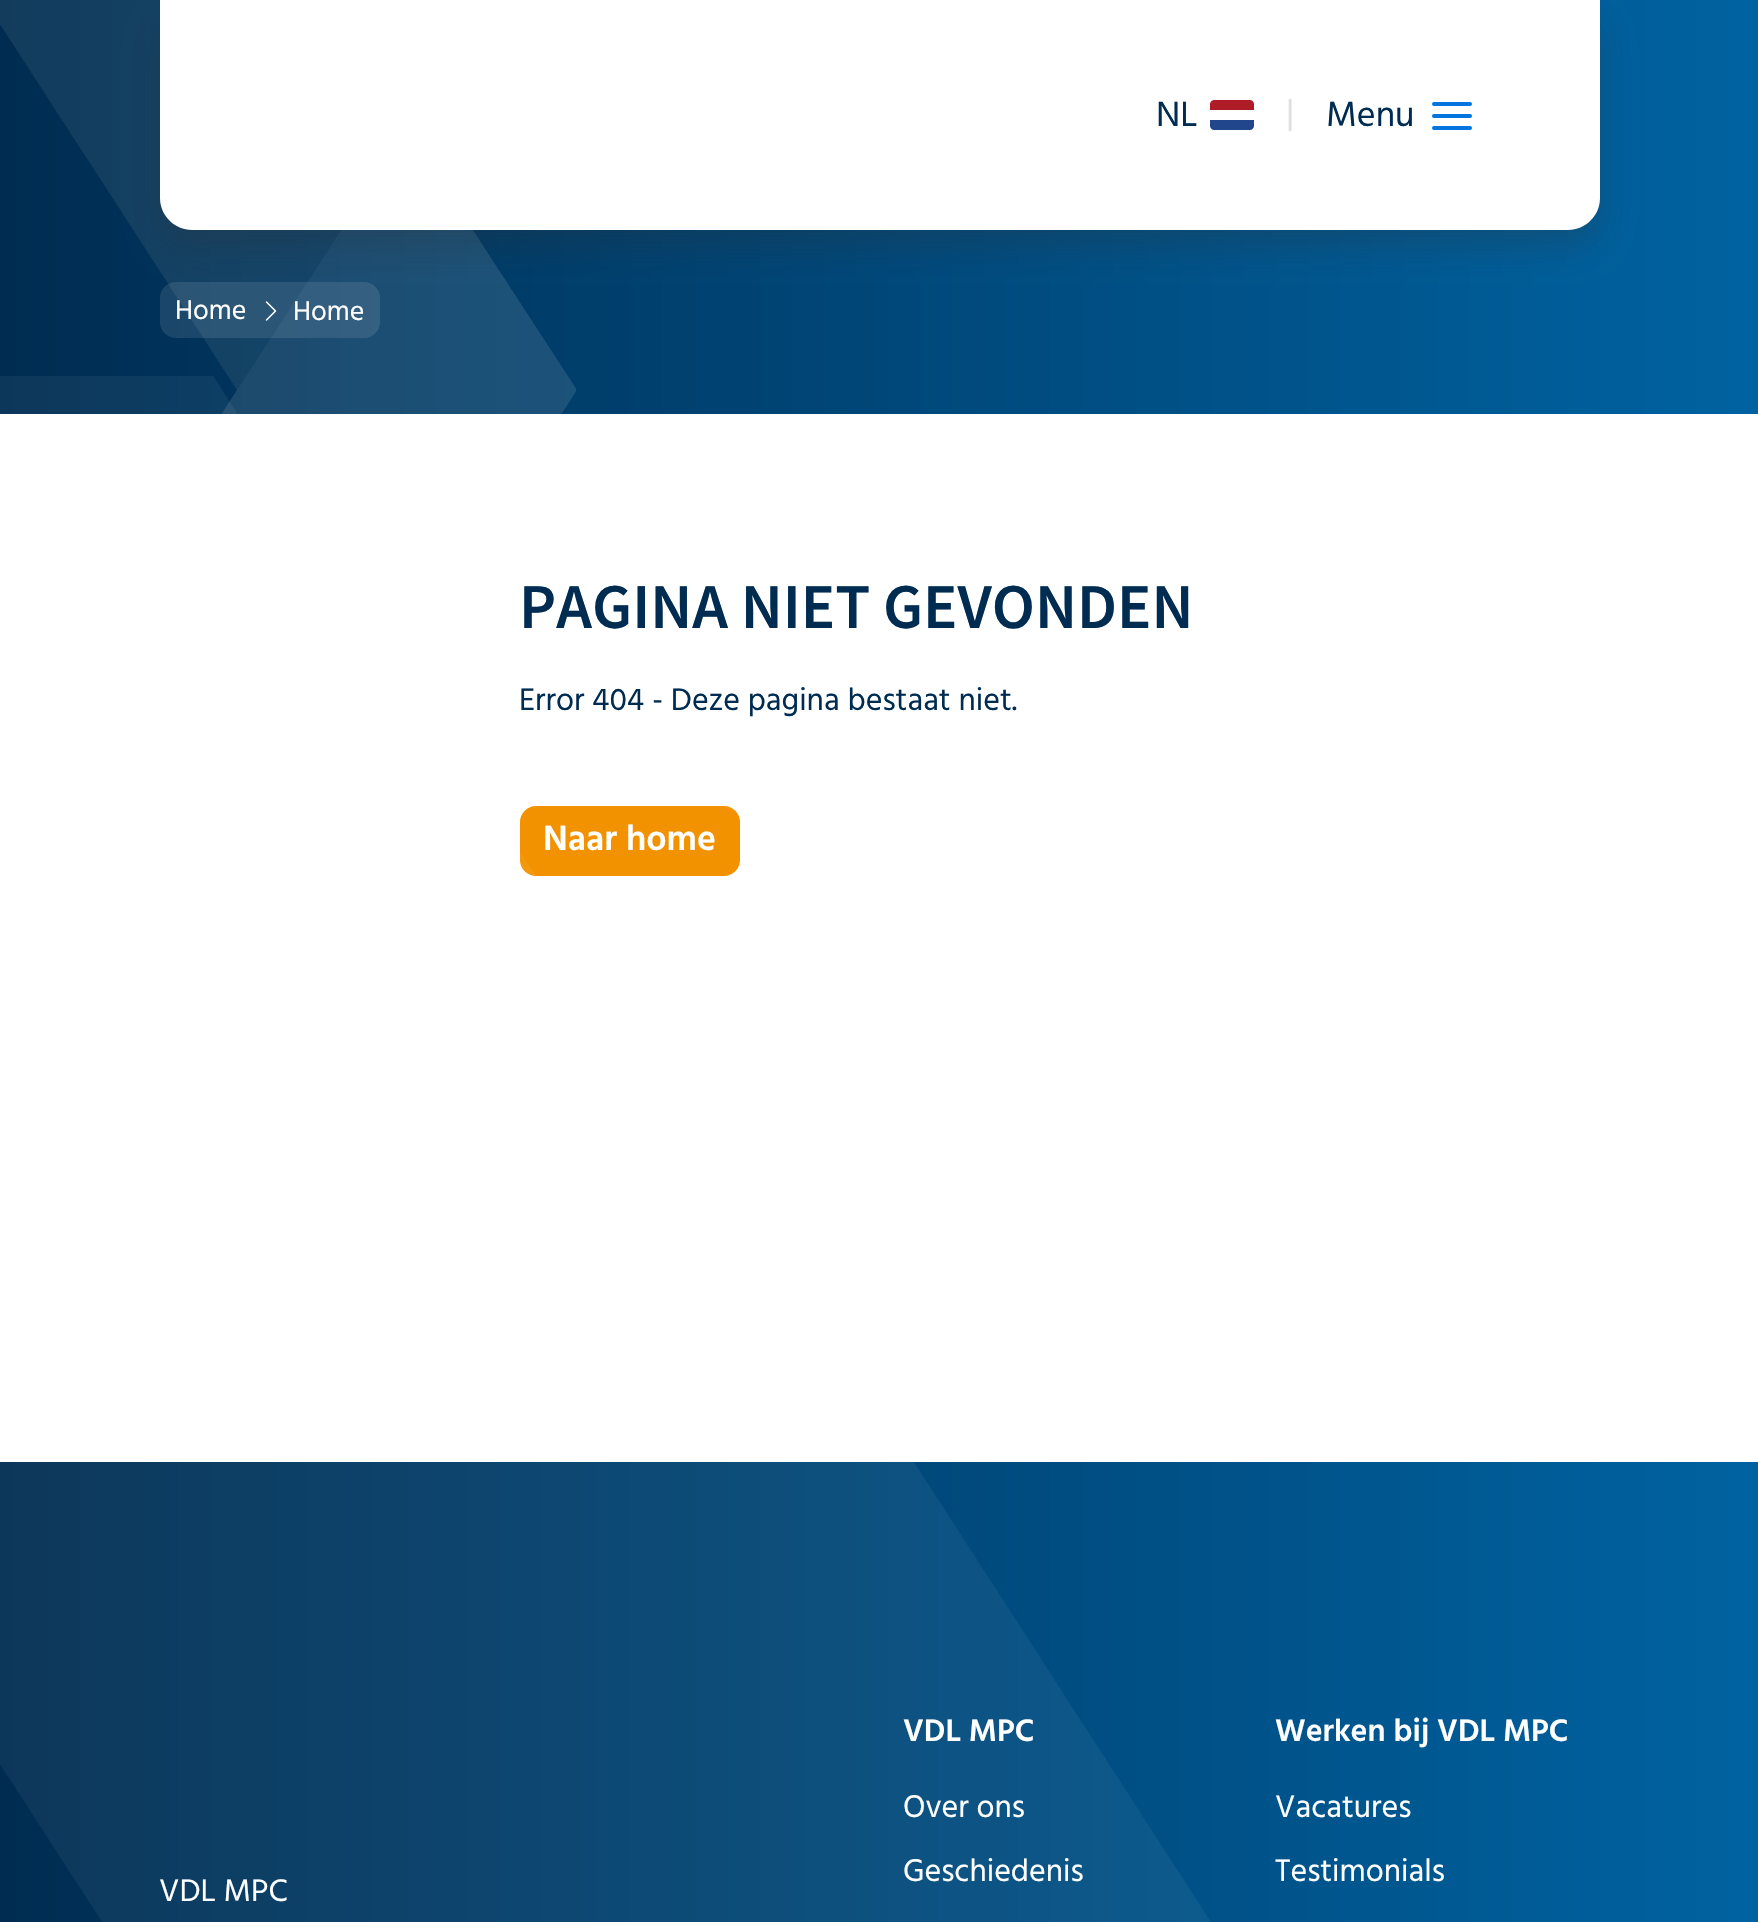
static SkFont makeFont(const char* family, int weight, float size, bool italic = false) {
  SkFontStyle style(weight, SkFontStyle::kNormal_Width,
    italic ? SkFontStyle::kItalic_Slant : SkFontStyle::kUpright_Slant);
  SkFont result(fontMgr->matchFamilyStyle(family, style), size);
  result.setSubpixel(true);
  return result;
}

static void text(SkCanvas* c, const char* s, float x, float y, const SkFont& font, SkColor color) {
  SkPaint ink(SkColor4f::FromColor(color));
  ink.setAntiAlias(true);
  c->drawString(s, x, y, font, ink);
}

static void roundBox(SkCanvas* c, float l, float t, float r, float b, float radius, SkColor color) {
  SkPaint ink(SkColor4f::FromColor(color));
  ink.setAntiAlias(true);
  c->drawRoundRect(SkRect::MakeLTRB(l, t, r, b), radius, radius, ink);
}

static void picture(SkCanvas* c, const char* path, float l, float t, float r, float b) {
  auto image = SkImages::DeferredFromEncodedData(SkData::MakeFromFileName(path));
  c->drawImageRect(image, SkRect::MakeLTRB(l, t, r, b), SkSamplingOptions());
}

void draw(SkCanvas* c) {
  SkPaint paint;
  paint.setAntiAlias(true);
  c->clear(0xffffffff);
  {
    const SkColor colors[] = {0xff0064a3, 0xff002c51};
    const float stops[] = {0, 1};
    const SkPoint ends[] = {{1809, 166}, {0, 166}};
    paint.setShader(SkGradientShader::MakeLinear(ends, colors, stops, 2, SkTileMode::kClamp));
    paint.setAlpha(255);
  }
  c->drawRect(SkRect::MakeLTRB(0, 0, 1758, 414), paint);
  c->save();
  c->clipRect(SkRect::MakeLTRB(0, 0, 576, 414));
  paint.setShader(nullptr);
  paint.setColor(0x26bfc9d0);
  c->drawPath(SkPathBuilder().moveTo(-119, 937).lineTo(407, 129).lineTo(577, 390).lineTo(221, 937).close().detach(), paint);
  c->restore();
  paint.setColor(0x2682929a);
  c->drawPath(SkPathBuilder().moveTo(-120, -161).lineTo(220, -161).lineTo(407, 129).lineTo(237, 390).close().detach(), paint);
  roundBox(c, 160, 282, 380, 338, 16, 0x1affffff);
  paint.setColor(0x402f2f2f);
  paint.setMaskFilter(SkMaskFilter::MakeBlur(kNormal_SkBlurStyle, 16));
  c->drawRoundRect(SkRect::MakeLTRB(160, 16, 1600, 246), 32, 32, paint);
  paint.setMaskFilter(nullptr);
  paint.setColor(0xffffffff);
  c->drawPath(SkPathBuilder().moveTo(160, 0).lineTo(1600, 0).lineTo(1600, 198).cubicTo(1600, 215.5f, 1585.5f, 230, 1568, 230).lineTo(192, 230).cubicTo(174.5f, 230, 160, 215.5f, 160, 198).close().detach(), paint);
  SkFont face1 = makeFont("Hind", 400, 36);
  text(c, "NL", 1156, 126, face1, 0xff002c51);
  paint.setColor(0xff21468b);
  c->drawPath(SkPathBuilder().moveTo(1210, 120).lineTo(1254, 120).lineTo(1254, 126).cubicTo(1254, 128, 1252, 130, 1250, 130).lineTo(1214, 130).cubicTo(1212, 130, 1210, 128, 1210, 126).close().detach(), paint);
  paint.setColor(0xffae1c28);
  c->drawPath(SkPathBuilder().moveTo(1214, 100).lineTo(1250, 100).cubicTo(1252, 100, 1254, 102, 1254, 104).lineTo(1254, 110).lineTo(1210, 110).lineTo(1210, 104).cubicTo(1210, 102, 1212, 100, 1214, 100).close().detach(), paint);
  text(c, "|", 1286, 124, face1, 0xffe0e0e0);
  text(c, "Menu", 1326, 126, face1, 0xff002c51);
  roundBox(c, 1432, 102, 1472, 106, 2, 0xff0075e0);
  roundBox(c, 1432, 114, 1472, 118, 2, 0xff0075e0);
  roundBox(c, 1432, 126, 1472, 130, 2, 0xff0075e0);
  SkFont face2 = makeFont("Hind", 400, 28);
  text(c, "Home", 175, 319, face2, 0xffffffff);
  picture(c, "img_01.png", 265, 301, 277, 321);
  text(c, "Home", 293, 320, face2, 0xffffffff);
  SkFont face3 = makeFont("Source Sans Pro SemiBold", 600, 64);
  text(c, "PAGINA NIET GEVONDEN", 519, 628, face3, 0xff002c51);
  SkFont face4 = makeFont("Hind", 400, 32);
  text(c, "Error 404 - Deze pagina bestaat niet.", 519, 710, face4, 0xff002c51);
  roundBox(c, 520, 806, 740, 876, 16, 0xfff39200);
  SkFont face5 = makeFont("Hind", 600, 36);
  text(c, "Naar home", 543, 850, face5, 0xffffffff);
  {
    const SkColor colors[] = {0xff0064a3, 0xff002c51};
    const float stops[] = {0, 1};
    const SkPoint ends[] = {{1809, 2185}, {0, 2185}};
    paint.setShader(SkGradientShader::MakeLinear(ends, colors, stops, 2, SkTileMode::kClamp));
    paint.setAlpha(255);
  }
  c->drawRect(SkRect::MakeLTRB(0, 1462, 1758, 1922), paint);
  paint.setShader(nullptr);
  paint.setColor(0x0dffffff);
  c->drawPath(SkPathBuilder().moveTo(-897, 376).lineTo(267, 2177).lineTo(823, 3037).lineTo(1376, 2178).lineTo(213, 376).close().detach(), paint);
  SkFont face6 = makeFont("Hind", 600, 32);
  text(c, "VDL MPC", 903, 1741, face6, 0xffffffff);
  text(c, "Over ons", 903, 1817, face4, 0xffffffff);
  text(c, "Geschiedenis", 903, 1881, face4, 0xffffffff);
  text(c, "Werken bij VDL MPC", 1275, 1741, face6, 0xffffffff);
  text(c, "Vacatures", 1275, 1817, face4, 0xffffffff);
  text(c, "Testimonials", 1275, 1881, face4, 0xffffffff);
  text(c, "VDL MPC", 159, 1901, face4, 0xffffffff);
}
